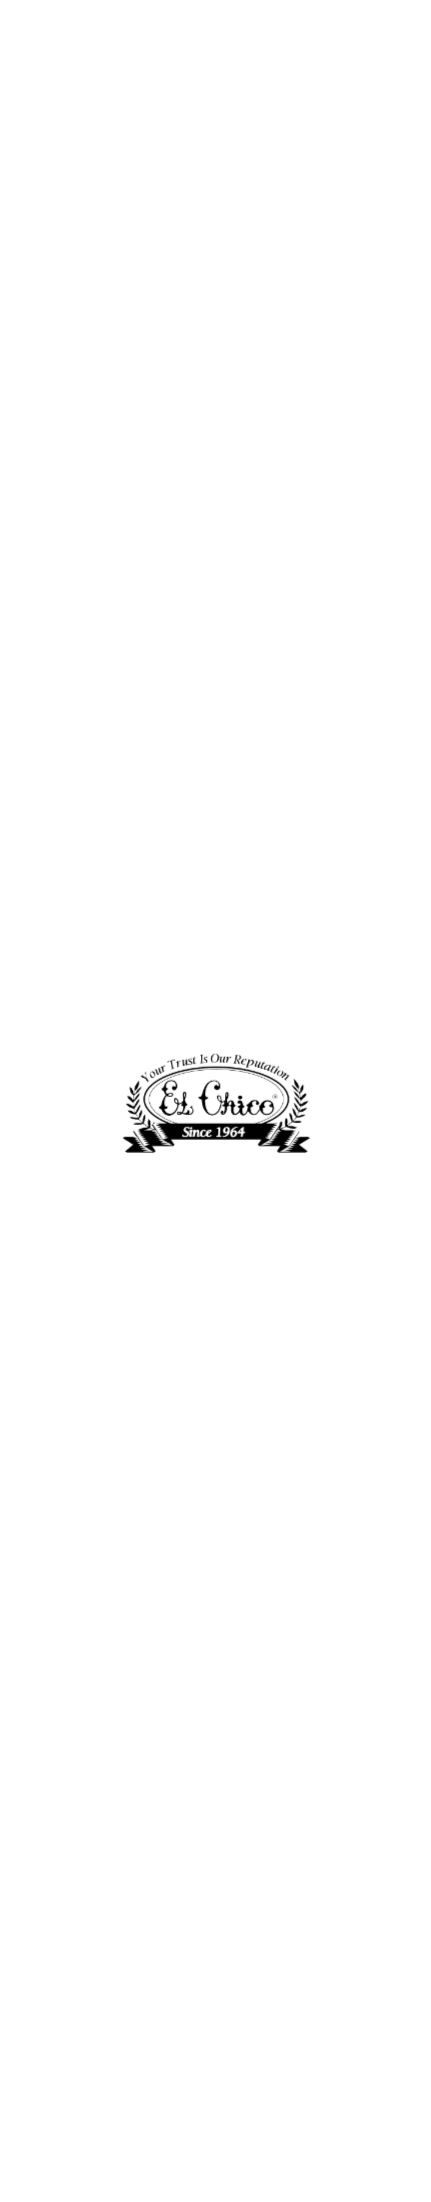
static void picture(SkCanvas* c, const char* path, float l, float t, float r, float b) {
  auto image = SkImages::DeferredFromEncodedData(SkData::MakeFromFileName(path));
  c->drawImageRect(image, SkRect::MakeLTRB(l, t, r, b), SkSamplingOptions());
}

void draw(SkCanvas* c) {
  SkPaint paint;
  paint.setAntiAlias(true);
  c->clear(0xffffffff);
  picture(c, "img_01.png", 122, 1053, 311, 1153);
}
